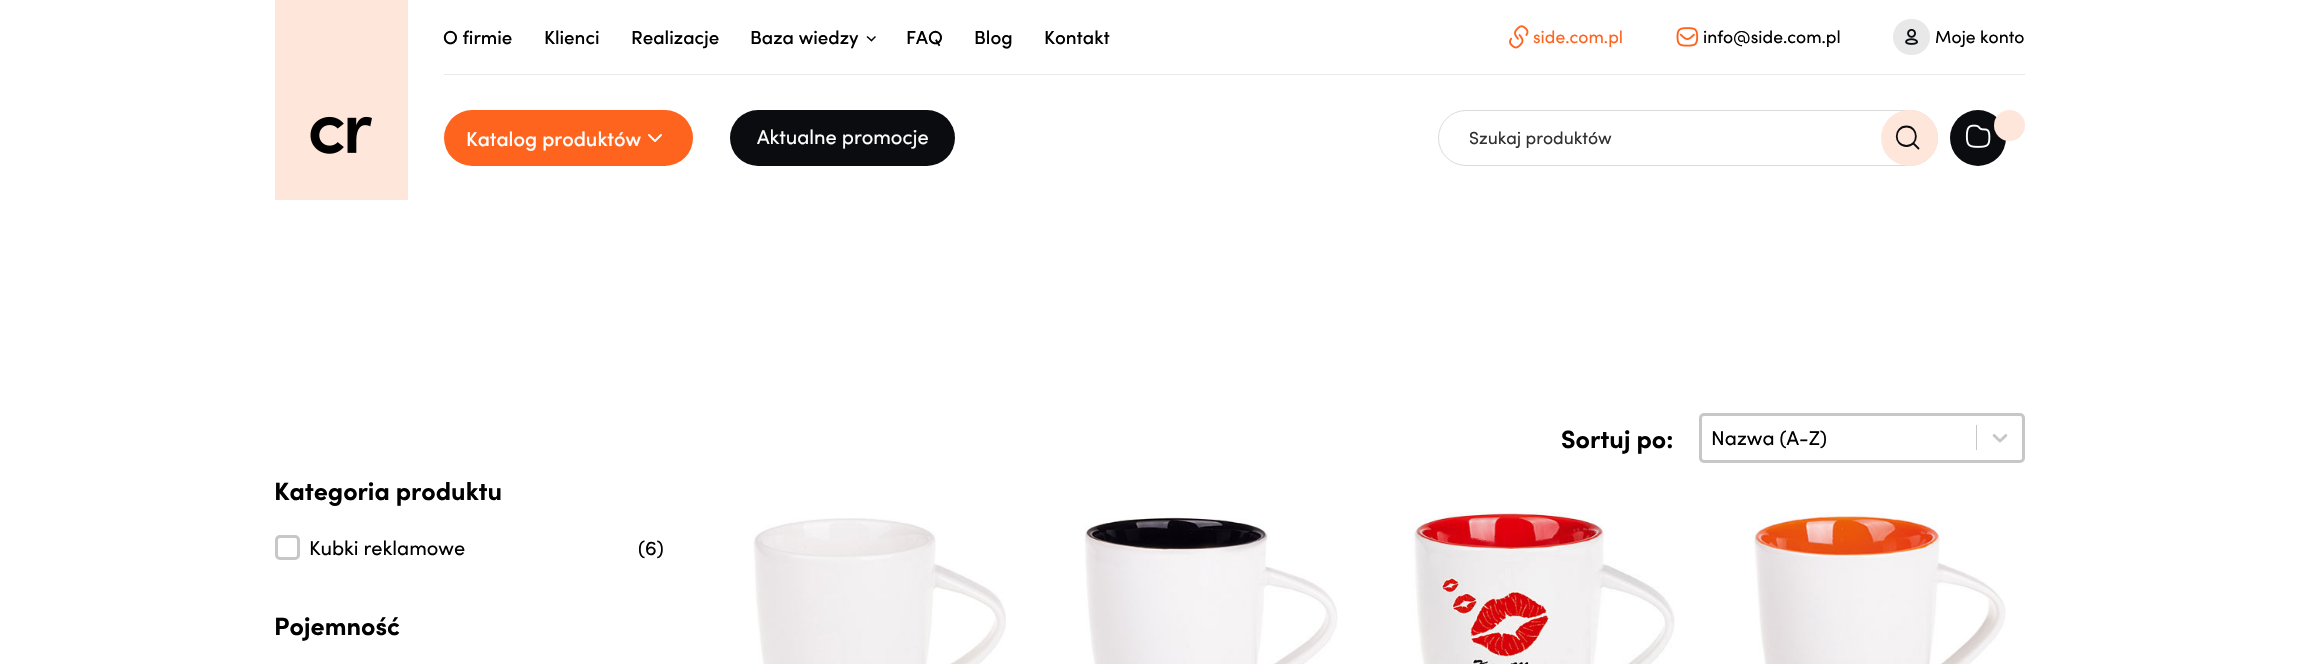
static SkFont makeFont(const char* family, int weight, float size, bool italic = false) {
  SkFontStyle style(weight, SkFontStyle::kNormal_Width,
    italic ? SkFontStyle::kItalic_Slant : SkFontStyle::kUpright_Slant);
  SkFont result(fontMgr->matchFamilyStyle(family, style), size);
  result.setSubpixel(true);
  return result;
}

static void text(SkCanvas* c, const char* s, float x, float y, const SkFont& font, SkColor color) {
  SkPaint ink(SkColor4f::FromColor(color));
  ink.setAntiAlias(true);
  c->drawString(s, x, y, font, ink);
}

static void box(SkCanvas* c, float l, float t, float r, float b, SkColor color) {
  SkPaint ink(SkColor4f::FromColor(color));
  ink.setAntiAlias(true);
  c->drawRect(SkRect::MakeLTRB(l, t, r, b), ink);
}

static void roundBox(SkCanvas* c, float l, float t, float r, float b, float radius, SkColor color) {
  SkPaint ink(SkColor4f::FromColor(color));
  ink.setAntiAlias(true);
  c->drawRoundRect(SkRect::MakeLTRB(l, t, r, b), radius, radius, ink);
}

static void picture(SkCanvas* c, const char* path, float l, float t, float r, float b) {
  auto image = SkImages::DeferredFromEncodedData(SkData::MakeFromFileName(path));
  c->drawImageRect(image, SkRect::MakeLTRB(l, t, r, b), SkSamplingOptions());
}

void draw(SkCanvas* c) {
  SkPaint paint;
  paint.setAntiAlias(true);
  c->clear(0xffffffff);
  box(c, 275, 0, 408, 200, 0xffffe6db);
  picture(c, "img_01.png", 310, 116, 372, 154);
  box(c, 444, 74, 2025, 75, 0xffe9e9e9);
  SkFont face1 = makeFont("Sofia", 500, 18.75f);
  text(c, "O firmie", 443, 44, face1, 0xff000000);
  text(c, "Klienci", 544, 44, face1, 0xff000000);
  text(c, "Realizacje", 631, 44, face1, 0xff000000);
  text(c, "Baza wiedzy", 750, 44, face1, 0xff000000);
  paint.setColor(0xff000000);
  c->drawPath(SkPathBuilder().moveTo(876, 37).lineTo(871.5f, 41.5f).lineTo(870.5f, 40.5f).lineTo(875, 36).close().detach(), paint);
  c->drawPath(SkPathBuilder().moveTo(872.5f, 40.5f).lineTo(871.5f, 41.5f).lineTo(866.5f, 37).lineTo(867.5f, 36).close().detach(), paint);
  text(c, "FAQ", 906, 44, face1, 0xff000000);
  text(c, "Blog", 974, 44, face1, 0xff000000);
  text(c, "Kontakt", 1044, 44, face1, 0xff000000);
  picture(c, "img_02.png", 1509, 25, 1529, 49);
  SkFont face2 = makeFont("Sofia", 400, 17.5f);
  text(c, "side.com.pl", 1533, 43, face2, 0xffff641e);
  picture(c, "img_03.png", 1676, 27, 1699, 47);
  text(c, "info@side.com.pl", 1703, 43, face2, 0xff000000);
  picture(c, "img_04.png", 1893, 19, 1930, 55);
  text(c, "Moje konto", 1935, 43, face2, 0xff000000);
  roundBox(c, 444, 110, 693, 166, 28, 0xffff641e);
  SkFont face3 = makeFont("Sofia", 500, 20);
  text(c, "Katalog produktów", 466, 146, face3, 0xffffffff);
  paint.setStyle(SkPaint::kStroke_Style);
  paint.setStrokeWidth(1.9f);
  paint.setStrokeCap(SkPaint::kRound_Cap);
  paint.setStrokeJoin(SkPaint::kRound_Join);
  paint.setColor(0xffffffff);
  c->drawPath(SkPathBuilder().moveTo(661, 135).lineTo(655, 141).lineTo(649, 135).detach(), paint);
  roundBox(c, 730, 110, 955, 166, 28, 0xff0a0c10);
  SkFont face4 = makeFont("Sofia", 400, 20);
  text(c, "Aktualne promocje", 757, 144, face4, 0xffffffff);
  paint.setStrokeWidth(1);
  paint.setStrokeCap(SkPaint::kButt_Cap);
  paint.setStrokeJoin(SkPaint::kMiter_Join);
  paint.setColor(0xffdadada);
  c->drawRoundRect(SkRect::MakeLTRB(1438.5f, 110.5f, 1937.5f, 165.5f), 27.5f, 27.5f, paint);
  text(c, "Szukaj produktów", 1469, 144, face2, 0xff313131);
  roundBox(c, 1881, 110, 1938, 166, 28, 0xffffe6db);
  paint.setStrokeWidth(1.8f);
  paint.setStrokeCap(SkPaint::kRound_Cap);
  paint.setStrokeJoin(SkPaint::kRound_Join);
  paint.setColor(0xff0a0c10);
  c->drawPath(SkPathBuilder().moveTo(1906.5f, 146).cubicTo(1919, 146, 1919, 126.5f, 1906.5f, 126.5f).cubicTo(1893.5f, 126.5f, 1893.5f, 146, 1906.5f, 146).close().moveTo(1913.5f, 143.5f).lineTo(1918.5f, 148.5f).detach(), paint);
  paint.setStyle(SkPaint::kFill_Style);
  c->drawCircle(1978, 138, 28, paint);
  picture(c, "img_05.png", 1965, 124, 1991, 148);
  paint.setColor(0xffffe6db);
  c->drawCircle(2009.5f, 125.5f, 15.5f, paint);
  SkFont face5 = makeFont("Sofia", 700, 25);
  text(c, "Sortuj po:", 1561, 448, face5, 0xff000000);
  paint.setStyle(SkPaint::kStroke_Style);
  paint.setStrokeWidth(3);
  paint.setStrokeCap(SkPaint::kButt_Cap);
  paint.setStrokeJoin(SkPaint::kMiter_Join);
  paint.setColor(0xffc7c7c7);
  c->drawRoundRect(SkRect::MakeLTRB(1700.5f, 414.5f, 2023.5f, 461.5f), 3.5f, 3.5f, paint);
  text(c, "Nazwa (A-Z)", 1711, 445, face4, 0xff000000);
  box(c, 1976, 425, 1977, 450, 0xffc7c7c7);
  picture(c, "img_06.png", 1992, 434, 2008, 443);
  picture(c, "img_07.png", 753, 518, 1006, 664);
  picture(c, "img_08.png", 1084, 517, 1338, 664);
  picture(c, "img_09.png", 1412, 512, 1675, 664);
  picture(c, "img_10.png", 1752, 512, 2006, 664);
  text(c, "Kategoria produktu", 274, 500, face5, 0xff000000);
  c->drawRoundRect(SkRect::MakeLTRB(276.5f, 536.5f, 298.5f, 558.5f), 3.5f, 3.5f, paint);
  text(c, "Kubki reklamowe", 309, 555, face4, 0xff000000);
  text(c, "(6)", 638, 555, face4, 0xff000000);
  text(c, "Pojemność", 274, 635, face5, 0xff000000);
}
